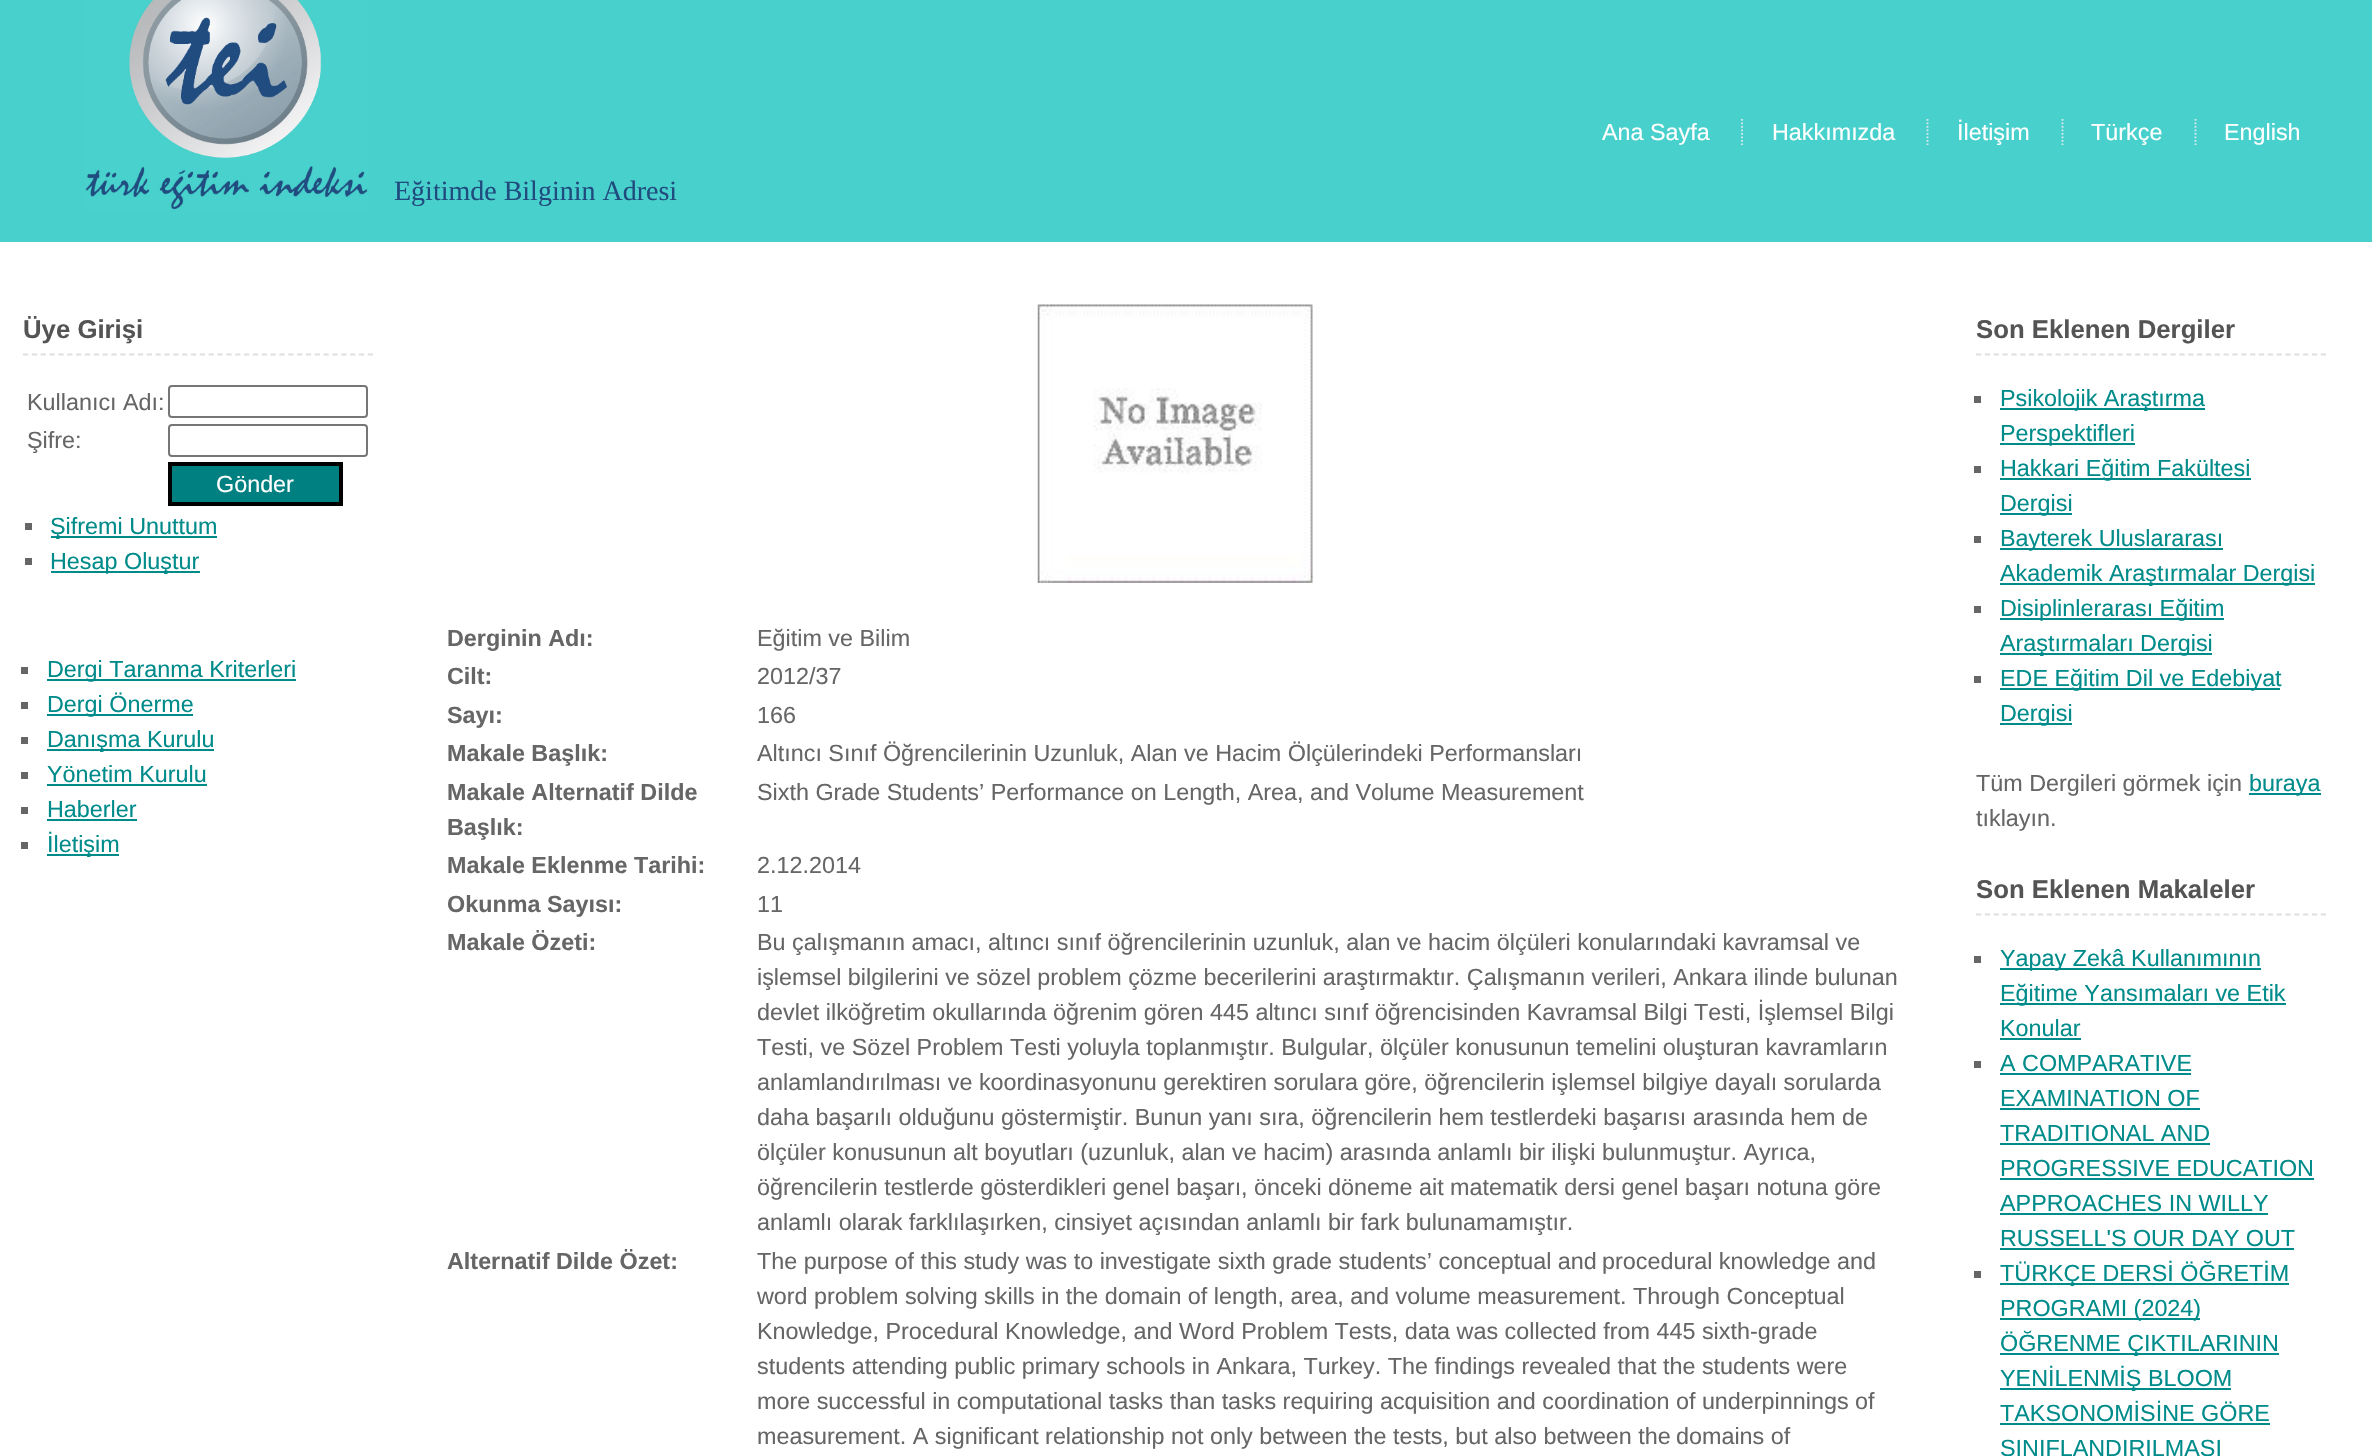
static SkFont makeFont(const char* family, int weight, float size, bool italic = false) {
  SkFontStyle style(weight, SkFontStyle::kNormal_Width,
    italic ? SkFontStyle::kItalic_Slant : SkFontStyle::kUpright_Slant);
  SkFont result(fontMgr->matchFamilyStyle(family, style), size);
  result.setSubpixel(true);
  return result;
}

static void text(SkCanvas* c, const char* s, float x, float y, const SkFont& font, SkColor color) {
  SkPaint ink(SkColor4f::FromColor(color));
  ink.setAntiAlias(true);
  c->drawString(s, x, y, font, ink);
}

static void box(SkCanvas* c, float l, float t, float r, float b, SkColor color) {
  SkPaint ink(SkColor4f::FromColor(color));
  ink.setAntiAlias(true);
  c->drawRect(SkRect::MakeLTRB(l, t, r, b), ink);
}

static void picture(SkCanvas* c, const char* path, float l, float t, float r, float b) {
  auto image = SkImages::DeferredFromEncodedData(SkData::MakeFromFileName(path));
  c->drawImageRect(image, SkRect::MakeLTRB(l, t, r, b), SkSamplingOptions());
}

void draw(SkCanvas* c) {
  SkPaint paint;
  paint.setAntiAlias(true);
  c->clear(0xffffffff);
  box(c, 0, 0, 2372, 242, 0xff48d1cc);
  SkFont face1 = makeFont("Liberation Sans", 400, 23.35f);
  text(c, "Ana Sayfa", 1602, 140, face1, 0xffffffff);
  text(c, "Hakkımızda", 1772, 140, face1, 0xffffffff);
  paint.setStyle(SkPaint::kStroke_Style);
  paint.setStrokeWidth(1.8f);
  paint.setColor(0xffe0e8ef);
  paint.setPathEffect(SkDashPathEffect::Make({{1.75f, 1.75f}}, 0));
  c->drawPath(SkPathBuilder().moveTo(1742, 119).lineTo(1742, 145).detach(), paint);
  paint.setPathEffect(nullptr);
  text(c, "İletişim", 1957, 140, face1, 0xffffffff);
  paint.setPathEffect(SkDashPathEffect::Make({{1.75f, 1.75f}}, 0));
  c->drawPath(SkPathBuilder().moveTo(1927.5f, 119).lineTo(1927.5f, 145).detach(), paint);
  paint.setPathEffect(nullptr);
  text(c, "Türkçe", 2091, 140, face1, 0xffffffff);
  paint.setPathEffect(SkDashPathEffect::Make({{1.75f, 1.75f}}, 0));
  c->drawPath(SkPathBuilder().moveTo(2062.5f, 119).lineTo(2062.5f, 145).detach(), paint);
  paint.setPathEffect(nullptr);
  text(c, "English", 2224, 140, face1, 0xffffffff);
  paint.setPathEffect(SkDashPathEffect::Make({{1.75f, 1.75f}}, 0));
  c->drawPath(SkPathBuilder().moveTo(2195.5f, 119).lineTo(2195.5f, 145).detach(), paint);
  paint.setPathEffect(nullptr);
  picture(c, "img_01.png", 85, 0, 368, 210);
  SkFont face2 = makeFont("Liberation Serif", 400, 28);
  text(c, "Eğitimde Bilginin Adresi", 394, 200, face2, 0xff204b7e);
  paint.setColor(0xffdfdfdf);
  paint.setPathEffect(SkDashPathEffect::Make({{5.25f, 3.59f}}, 0));
  c->drawPath(SkPathBuilder().moveTo(23, 354.5f).lineTo(373, 354.5f).detach(), paint);
  paint.setPathEffect(nullptr);
  SkFont face3 = makeFont("Liberation Sans", 700, 25.75f);
  text(c, "Üye Girişi", 23, 338, face3, 0xff545454);
  text(c, "Kullanıcı Adı:", 27, 410, face1, 0xff666666);
  paint.setStrokeWidth(2);
  paint.setColor(0xff767676);
  c->drawRoundRect(SkRect::MakeLTRB(169, 386, 367, 417), 3, 3, paint);
  text(c, "Şifre:", 27, 448, face1, 0xff666666);
  c->drawRoundRect(SkRect::MakeLTRB(169, 425, 367, 456), 3, 3, paint);
  paint.setStyle(SkPaint::kFill_Style);
  paint.setColor(0xff008080);
  c->drawRect(SkRect::MakeLTRB(170, 464, 341, 504), paint);
  paint.setStyle(SkPaint::kStroke_Style);
  paint.setStrokeWidth(4);
  paint.setColor(0xff000000);
  c->drawRect(SkRect::MakeLTRB(170, 464, 341, 504), paint);
  text(c, "Gönder", 216, 492, face1, 0xffffffff);
  box(c, 25, 523, 32, 530, 0xff666666);
  box(c, 51, 536, 217, 538, 0xff008b8b);
  text(c, "Şifremi Unuttum", 50, 534, face1, 0xff008b8b);
  box(c, 25, 558, 32, 565, 0xff666666);
  box(c, 51, 571, 200, 573, 0xff008b8b);
  text(c, "Hesap Oluştur", 50, 569, face1, 0xff008b8b);
  box(c, 21, 667, 28, 674, 0xff666666);
  box(c, 47, 679, 296, 681, 0xff008b8b);
  text(c, "Dergi Taranma Kriterleri", 47, 677, face1, 0xff008b8b);
  box(c, 21, 702, 28, 709, 0xff666666);
  box(c, 47, 714, 193, 716, 0xff008b8b);
  text(c, "Dergi Önerme", 47, 712, face1, 0xff008b8b);
  box(c, 21, 737, 28, 744, 0xff666666);
  box(c, 47, 749, 214, 751, 0xff008b8b);
  text(c, "Danışma Kurulu", 47, 747, face1, 0xff008b8b);
  box(c, 21, 772, 28, 779, 0xff666666);
  text(c, "Yönetim Kurulu", 47, 782, face1, 0xff008b8b);
  box(c, 47, 784, 207, 786, 0xff008b8b);
  box(c, 21, 807, 28, 814, 0xff666666);
  text(c, "Haberler", 47, 817, face1, 0xff008b8b);
  box(c, 47, 819, 137, 821, 0xff008b8b);
  box(c, 21, 842, 28, 849, 0xff666666);
  box(c, 47, 854, 119, 856, 0xff008b8b);
  text(c, "İletişim", 47, 852, face1, 0xff008b8b);
  picture(c, "img_02.png", 1037, 304, 1313, 583);
  SkFont face4 = makeFont("Liberation Sans", 700, 23.35f);
  text(c, "Derginin Adı:", 447, 646, face4, 0xff666666);
  text(c, "Eğitim ve Bilim", 757, 646, face1, 0xff666666);
  text(c, "Cilt:", 447, 684, face4, 0xff666666);
  text(c, "2012/37", 757, 684, face1, 0xff666666);
  text(c, "Sayı:", 447, 723, face4, 0xff666666);
  text(c, "166", 757, 723, face1, 0xff666666);
  text(c, "Makale Başlık:", 447, 761, face4, 0xff666666);
  text(c, "Altıncı Sınıf Öğrencilerinin Uzunluk, Alan ve Hacim Ölçülerindeki Performansları", 757, 761, face1, 0xff666666);
  text(c, "Makale Alternatif Dilde", 447, 800, face4, 0xff666666);
  text(c, "Başlık:", 447, 835, face4, 0xff666666);
  text(c, "Sixth Grade Students’ Performance on Length, Area, and Volume Measurement", 757, 800, face1, 0xff666666);
  text(c, "Makale Eklenme Tarihi:", 447, 873, face4, 0xff666666);
  text(c, "2.12.2014", 757, 873, face1, 0xff666666);
  text(c, "Okunma Sayısı:", 447, 912, face4, 0xff666666);
  text(c, "11", 757, 912, face1, 0xff666666);
  text(c, "Makale Özeti:", 447, 950, face4, 0xff666666);
  text(c, "Bu çalışmanın amacı, altıncı sınıf öğrencilerinin uzunluk, alan ve hacim ölçüleri konularındaki kavramsal ve", 757, 950, face1, 0xff666666);
  text(c, "işlemsel bilgilerini ve sözel problem çözme becerilerini araştırmaktır. Çalışmanın verileri, Ankara ilinde bulunan", 757, 985, face1, 0xff666666);
  text(c, "devlet ilköğretim okullarında öğrenim gören 445 altıncı sınıf öğrencisinden Kavramsal Bilgi Testi, İşlemsel Bilgi", 757, 1020, face1, 0xff666666);
  text(c, "Testi, ve Sözel Problem Testi yoluyla toplanmıştır. Bulgular, ölçüler konusunun temelini oluşturan kavramların", 757, 1055, face1, 0xff666666);
  text(c, "anlamlandırılması ve koordinasyonunu gerektiren sorulara göre, öğrencilerin işlemsel bilgiye dayalı sorularda", 757, 1090, face1, 0xff666666);
  text(c, "daha başarılı olduğunu göstermiştir. Bunun yanı sıra, öğrencilerin hem testlerdeki başarısı arasında hem de", 757, 1125, face1, 0xff666666);
  text(c, "ölçüler konusunun alt boyutları (uzunluk, alan ve hacim) arasında anlamlı bir ilişki bulunmuştur. Ayrıca,", 757, 1160, face1, 0xff666666);
  text(c, "öğrencilerin testlerde gösterdikleri genel başarı, önceki döneme ait matematik dersi genel başarı notuna göre", 757, 1195, face1, 0xff666666);
  text(c, "anlamlı olarak farklılaşırken, cinsiyet açısından anlamlı bir fark bulunamamıştır.", 757, 1230, face1, 0xff666666);
  text(c, "Alternatif Dilde Özet:", 447, 1269, face4, 0xff666666);
  text(c, "The purpose of this study was to investigate sixth grade students’ conceptual and", 757, 1269, face1, 0xff666666);
  text(c, "procedural knowledge and", 1602, 1269, face1, 0xff666666);
  text(c, "word problem solving skills in the domain of length, area, and volume measurement. Through Conceptual", 757, 1304, face1, 0xff666666);
  text(c, "Knowledge, Procedural Knowledge, and Word Problem Tests, data was collected from 445 sixth-grade", 757, 1339, face1, 0xff666666);
  text(c, "students attending public primary schools in Ankara, Turkey. The findings revealed that the students were", 757, 1374, face1, 0xff666666);
  text(c, "more successful in computational tasks than tasks requiring acquisition and coordination of underpinnings of", 757, 1409, face1, 0xff666666);
  text(c, "measurement. A significant relationship not only between the tests, but also between the", 757, 1444, face1, 0xff666666);
  text(c, "domains of", 1676, 1444, face1, 0xff666666);
  paint.setStrokeWidth(1.8f);
  paint.setColor(0xffdfdfdf);
  paint.setPathEffect(SkDashPathEffect::Make({{5.25f, 3.59f}}, 0));
  c->drawPath(SkPathBuilder().moveTo(1976, 354.5f).lineTo(2326, 354.5f).detach(), paint);
  paint.setPathEffect(nullptr);
  text(c, "Son Eklenen Dergiler", 1976, 338, face3, 0xff545454);
  box(c, 1974, 396, 1981, 403, 0xff666666);
  box(c, 2000, 408, 2205, 410, 0xff008b8b);
  text(c, "Psikolojik Araştırma", 2000, 406, face1, 0xff008b8b);
  box(c, 2000, 443, 2135, 445, 0xff008b8b);
  text(c, "Perspektifleri", 2000, 441, face1, 0xff008b8b);
  box(c, 1974, 466, 1981, 473, 0xff666666);
  box(c, 2000, 478, 2251, 480, 0xff008b8b);
  text(c, "Hakkari Eğitim Fakültesi", 2000, 476, face1, 0xff008b8b);
  box(c, 2000, 513, 2072, 515, 0xff008b8b);
  text(c, "Dergisi", 2000, 511, face1, 0xff008b8b);
  box(c, 1974, 536, 1981, 543, 0xff666666);
  box(c, 2000, 548, 2223, 550, 0xff008b8b);
  text(c, "Bayterek Uluslararası", 2000, 546, face1, 0xff008b8b);
  box(c, 2000, 583, 2315, 585, 0xff008b8b);
  text(c, "Akademik Araştırmalar Dergisi", 2000, 581, face1, 0xff008b8b);
  box(c, 1974, 606, 1981, 613, 0xff666666);
  box(c, 2000, 618, 2224, 620, 0xff008b8b);
  text(c, "Disiplinlerarası Eğitim", 2000, 616, face1, 0xff008b8b);
  box(c, 2000, 653, 2212, 655, 0xff008b8b);
  text(c, "Araştırmaları Dergisi", 2000, 651, face1, 0xff008b8b);
  box(c, 1974, 676, 1981, 683, 0xff666666);
  box(c, 2000, 688, 2280, 690, 0xff008b8b);
  text(c, "EDE Eğitim Dil ve Edebiyat", 2000, 686, face1, 0xff008b8b);
  box(c, 2000, 723, 2072, 725, 0xff008b8b);
  text(c, "Dergisi", 2000, 721, face1, 0xff008b8b);
  text(c, "Tüm Dergileri görmek için", 1976, 791, face1, 0xff666666);
  box(c, 2249, 793, 2321, 795, 0xff008b8b);
  text(c, "buraya", 2249, 791, face1, 0xff008b8b);
  text(c, "tıklayın.", 1976, 826, face1, 0xff666666);
  paint.setPathEffect(SkDashPathEffect::Make({{5.25f, 3.59f}}, 0));
  c->drawPath(SkPathBuilder().moveTo(1976, 914.5f).lineTo(2326, 914.5f).detach(), paint);
  paint.setPathEffect(nullptr);
  text(c, "Son Eklenen Makaleler", 1976, 898, face3, 0xff545454);
  box(c, 1974, 956, 1981, 963, 0xff666666);
  box(c, 2000, 968, 2261, 970, 0xff008b8b);
  text(c, "Yapay Zekâ Kullanımının", 2000, 966, face1, 0xff008b8b);
  box(c, 2000, 1003, 2286, 1005, 0xff008b8b);
  text(c, "Eğitime Yansımaları ve Etik", 2000, 1001, face1, 0xff008b8b);
  text(c, "Konular", 2000, 1036, face1, 0xff008b8b);
  box(c, 2000, 1038, 2081, 1040, 0xff008b8b);
  box(c, 1974, 1061, 1981, 1068, 0xff666666);
  text(c, "A COMPARATIVE", 2000, 1071, face1, 0xff008b8b);
  box(c, 2000, 1073, 2191, 1075, 0xff008b8b);
  text(c, "EXAMINATION OF", 2000, 1106, face1, 0xff008b8b);
  box(c, 2000, 1108, 2200, 1110, 0xff008b8b);
  text(c, "TRADITIONAL AND", 2000, 1141, face1, 0xff008b8b);
  box(c, 2000, 1143, 2210, 1145, 0xff008b8b);
  text(c, "PROGRESSIVE EDUCATION", 2000, 1176, face1, 0xff008b8b);
  box(c, 2000, 1178, 2314, 1180, 0xff008b8b);
  text(c, "APPROACHES IN WILLY", 2000, 1211, face1, 0xff008b8b);
  box(c, 2000, 1213, 2268, 1215, 0xff008b8b);
  text(c, "RUSSELL'S OUR DAY OUT", 2000, 1246, face1, 0xff008b8b);
  box(c, 2000, 1248, 2294, 1250, 0xff008b8b);
  box(c, 1974, 1271, 1981, 1278, 0xff666666);
  box(c, 2000, 1283, 2289, 1285, 0xff008b8b);
  text(c, "TÜRKÇE DERSİ ÖĞRETİM", 2000, 1281, face1, 0xff008b8b);
  box(c, 2000, 1318, 2200, 1320, 0xff008b8b);
  text(c, "PROGRAMI (2024)", 2000, 1316, face1, 0xff008b8b);
  box(c, 2000, 1353, 2279, 1355, 0xff008b8b);
  text(c, "ÖĞRENME ÇIKTILARININ", 2000, 1351, face1, 0xff008b8b);
  box(c, 2000, 1388, 2231, 1390, 0xff008b8b);
  text(c, "YENİLENMİŞ BLOOM", 2000, 1386, face1, 0xff008b8b);
  text(c, "TAKSONOMİSİNE GÖRE", 2000, 1421, face1, 0xff008b8b);
  box(c, 2000, 1423, 2270, 1425, 0xff008b8b);
  text(c, "SINIFLANDIRILMASI", 2000, 1456, face1, 0xff008b8b);
}
